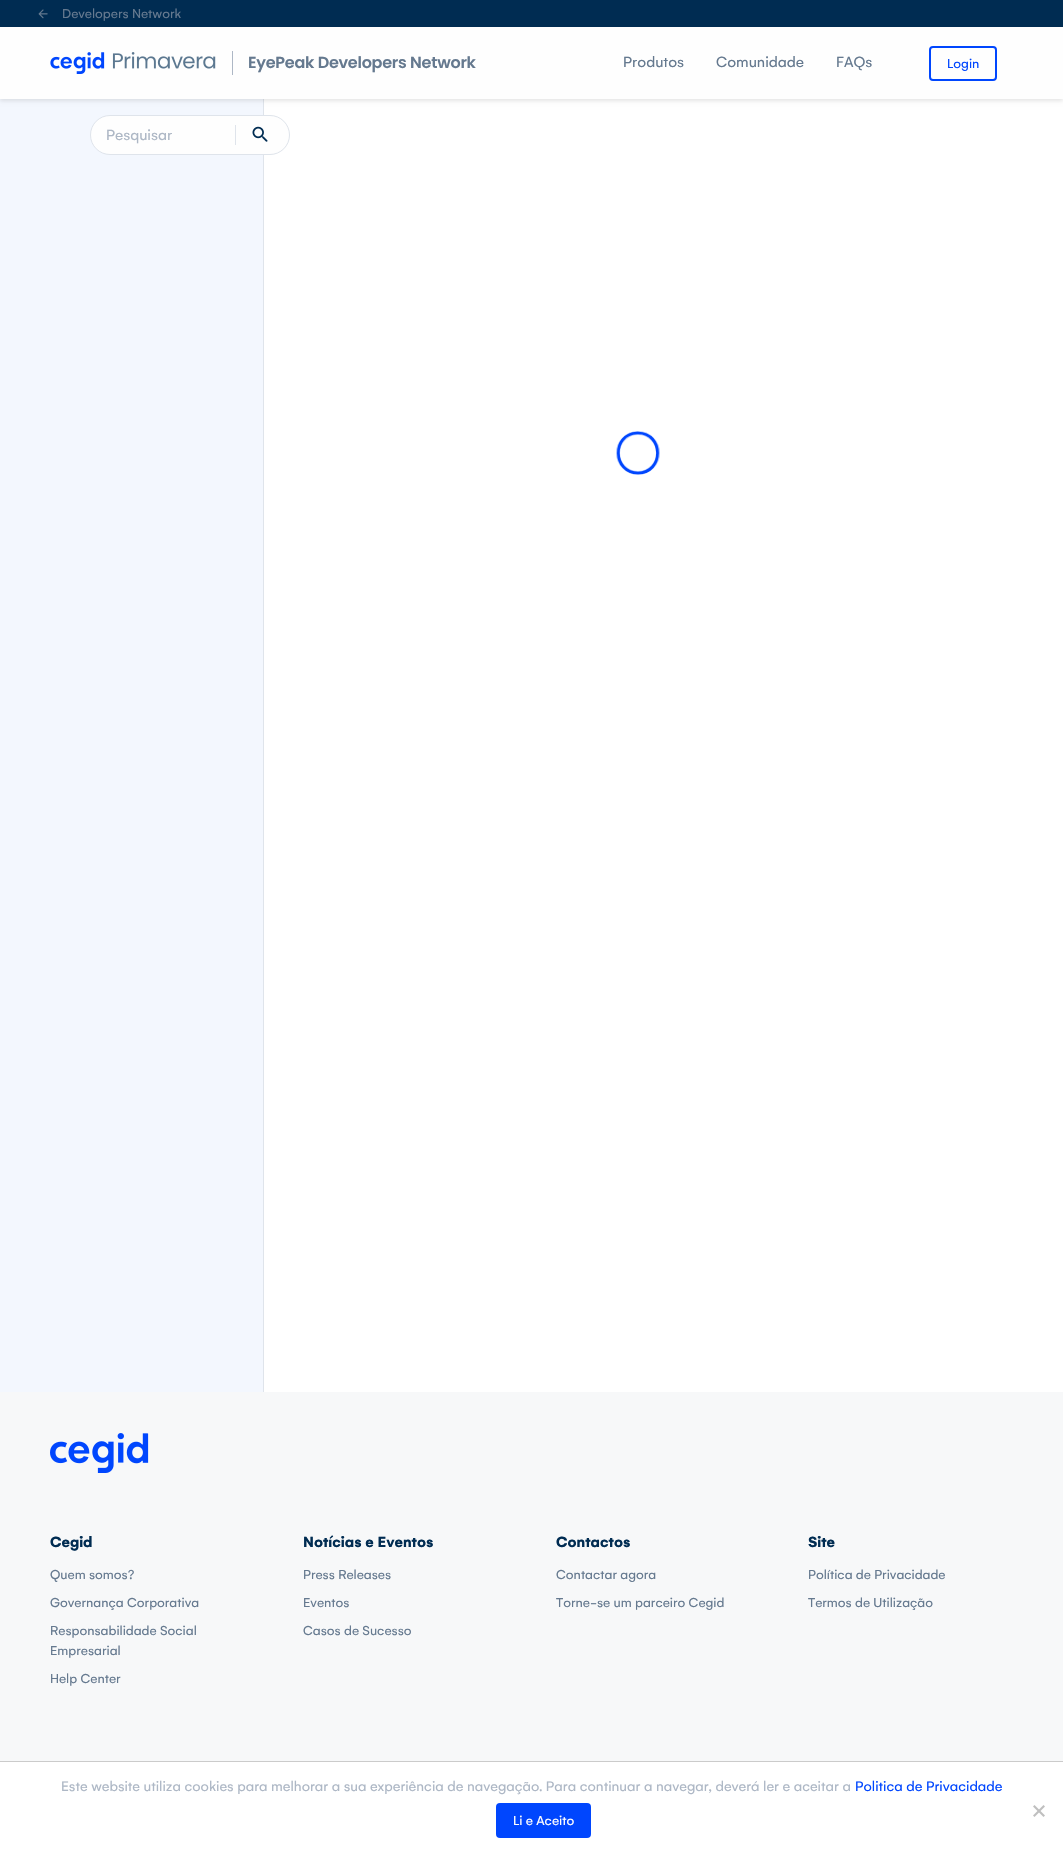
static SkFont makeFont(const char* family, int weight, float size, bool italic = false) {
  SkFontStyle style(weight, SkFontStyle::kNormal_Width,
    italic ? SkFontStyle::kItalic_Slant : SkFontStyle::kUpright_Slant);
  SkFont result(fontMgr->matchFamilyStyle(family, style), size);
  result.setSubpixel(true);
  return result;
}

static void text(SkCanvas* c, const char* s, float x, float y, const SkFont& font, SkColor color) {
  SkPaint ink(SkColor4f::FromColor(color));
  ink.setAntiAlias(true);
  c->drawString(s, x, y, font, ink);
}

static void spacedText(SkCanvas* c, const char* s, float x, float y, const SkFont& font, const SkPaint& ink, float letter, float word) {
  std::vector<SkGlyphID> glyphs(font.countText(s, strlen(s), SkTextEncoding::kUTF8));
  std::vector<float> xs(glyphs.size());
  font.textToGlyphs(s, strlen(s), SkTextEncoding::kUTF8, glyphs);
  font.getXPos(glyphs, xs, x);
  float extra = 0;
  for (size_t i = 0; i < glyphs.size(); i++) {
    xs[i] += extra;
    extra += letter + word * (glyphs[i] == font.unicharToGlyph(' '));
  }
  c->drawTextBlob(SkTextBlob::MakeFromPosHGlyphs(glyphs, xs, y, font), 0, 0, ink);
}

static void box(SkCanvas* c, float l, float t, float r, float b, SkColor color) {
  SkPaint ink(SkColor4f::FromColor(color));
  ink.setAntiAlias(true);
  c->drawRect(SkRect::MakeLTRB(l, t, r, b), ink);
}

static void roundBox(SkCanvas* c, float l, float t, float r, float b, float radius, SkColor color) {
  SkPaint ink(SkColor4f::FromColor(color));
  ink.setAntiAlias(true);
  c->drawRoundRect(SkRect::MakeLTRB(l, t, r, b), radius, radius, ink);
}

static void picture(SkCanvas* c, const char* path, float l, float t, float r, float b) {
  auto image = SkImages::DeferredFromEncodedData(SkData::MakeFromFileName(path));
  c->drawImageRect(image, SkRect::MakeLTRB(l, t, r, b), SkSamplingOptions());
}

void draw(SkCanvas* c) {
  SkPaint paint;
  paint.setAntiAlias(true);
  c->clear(0xffffffff);
  box(c, 0, 0, 1063, 27, 0xff002c52);
  picture(c, "img_01.png", 38, 9, 48, 19);
  SkFont face1 = makeFont("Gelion", 400, 14);
  text(c, "Developers Network", 62, 18, face1, 0xff65798f);
  box(c, 0, 99, 263, 1392, 0xfff3f7fe);
  box(c, 263, 99, 264, 1392, 0xffdfe4eb);
  paint.setColor(0x1a000000);
  paint.setMaskFilter(SkMaskFilter::MakeBlur(kNormal_SkBlurStyle, 2));
  c->drawRect(SkRect::MakeLTRB(0, 29, 1063, 101), paint);
  paint.setMaskFilter(nullptr);
  box(c, 0, 27, 1063, 99, 0xfffefefe);
  picture(c, "img_02.png", 50, 52, 216, 74);
  box(c, 232, 51, 233, 75, 0xffadb7c5);
  SkFont face2 = makeFont("Poppins", 600, 16);
  paint.setColor(0xff65798f);
  spacedText(c, "EyePeak Developers Network", 248, 68, face2, paint, -0.25f, 0);
  SkFont face3 = makeFont("Gelion", 400, 16);
  text(c, "Produtos", 623, 67, face3, 0xff65798f);
  text(c, "Comunidade", 716, 67, face3, 0xff65798f);
  text(c, "FAQs", 836, 67, face3, 0xff65798f);
  paint.setStyle(SkPaint::kStroke_Style);
  paint.setStrokeWidth(2);
  paint.setColor(0xff0046fe);
  c->drawRoundRect(SkRect::MakeLTRB(930, 47, 996, 80), 3, 3, paint);
  text(c, "Login", 947, 68, face1, 0xff0046fe);
  paint.setStyle(SkPaint::kFill_Style);
  paint.setColor(0xfffefefe);
  c->drawRoundRect(SkRect::MakeLTRB(90.5f, 115.5f, 289.5f, 154.5f), 19.5f, 19.5f, paint);
  paint.setStyle(SkPaint::kStroke_Style);
  paint.setStrokeWidth(1);
  paint.setColor(0xffdfe4eb);
  c->drawRoundRect(SkRect::MakeLTRB(90.5f, 115.5f, 289.5f, 154.5f), 19.5f, 19.5f, paint);
  text(c, "Pesquisar", 106, 140, face3, 0xffadb7c5);
  box(c, 235, 125, 236, 145, 0xffdfe4eb);
  picture(c, "img_03.png", 252, 126, 268, 142);
  paint.setStrokeWidth(4);
  paint.setColor(0xffadc4ff);
  c->drawCircle(638, 453, 20, paint);
  c->save();
  c->clipPath(SkPathBuilder().moveTo(638, 431).cubicTo(650, 431, 660, 441, 660, 453).cubicTo(660, 465, 650, 475, 638, 475).cubicTo(626, 475, 616, 465, 616, 453).cubicTo(616, 441, 626, 431, 638, 431).close().detach(), true);
  paint.setStrokeWidth(2.7f);
  paint.setStrokeCap(SkPaint::kRound_Cap);
  paint.setColor(0xff0046fe);
  c->drawPath(SkPathBuilder().moveTo(638, 433).cubicTo(664, 433, 664, 473, 638, 473).cubicTo(612.5f, 473, 611.5f, 434, 637, 433).detach(), paint);
  c->restore();
  box(c, 0, 1392, 1063, 1761, 0xfff7f8f9);
  picture(c, "img_04.png", 50, 1433, 149, 1473);
  SkFont face4 = makeFont("Gelion", 700, 16);
  text(c, "Cegid", 50, 1547, face4, 0xff002c52);
  text(c, "Quem somos?", 50, 1579, face1, 0xff65798f);
  text(c, "Governança Corporativa", 50, 1607, face1, 0xff65798f);
  text(c, "Responsabilidade Social", 50, 1635, face1, 0xff65798f);
  text(c, "Empresarial", 50, 1655, face1, 0xff65798f);
  text(c, "Help Center", 50, 1683, face1, 0xff65798f);
  text(c, "Notícias e Eventos", 303, 1547, face4, 0xff002c52);
  text(c, "Press Releases", 303, 1579, face1, 0xff65798f);
  text(c, "Eventos", 303, 1607, face1, 0xff65798f);
  text(c, "Casos de Sucesso", 303, 1635, face1, 0xff65798f);
  text(c, "Contactos", 556, 1547, face4, 0xff002c52);
  text(c, "Contactar agora", 556, 1579, face1, 0xff65798f);
  text(c, "Torne-se um parceiro Cegid", 556, 1607, face1, 0xff65798f);
  text(c, "Site", 808, 1547, face4, 0xff002c52);
  text(c, "Política de Privacidade", 808, 1579, face1, 0xff65798f);
  text(c, "Termos de Utilização", 808, 1607, face1, 0xff65798f);
  box(c, 0, 1761, 1063, 1762, 0xffcbcbcb);
  SkFont face5 = makeFont("Gelion", 400, 15);
  text(c, "Este website utiliza cookies para melhorar a sua experiência de navegação. Para continuar a navegar, deverá ler e aceitar a", 61, 1791, face5, 0xffadb7c5);
  text(c, "Politica de Privacidade", 855, 1791, face5, 0xff0046fe);
  paint.setStyle(SkPaint::kFill_Style);
  paint.setColor(0xffbfbfbf);
  c->drawPath(SkPathBuilder().moveTo(1043.5f, 1805).lineTo(1045, 1806.5f).lineTo(1034.5f, 1817).lineTo(1033, 1815.5f).close().detach(), paint);
  c->drawPath(SkPathBuilder().moveTo(1033, 1806.5f).lineTo(1034.5f, 1805).lineTo(1045, 1815.5f).lineTo(1043.5f, 1817).close().detach(), paint);
  roundBox(c, 496, 1803, 591, 1838, 4, 0xff0046fe);
  text(c, "Li e Aceito", 513, 1825, face1, 0xfffefefe);
}
